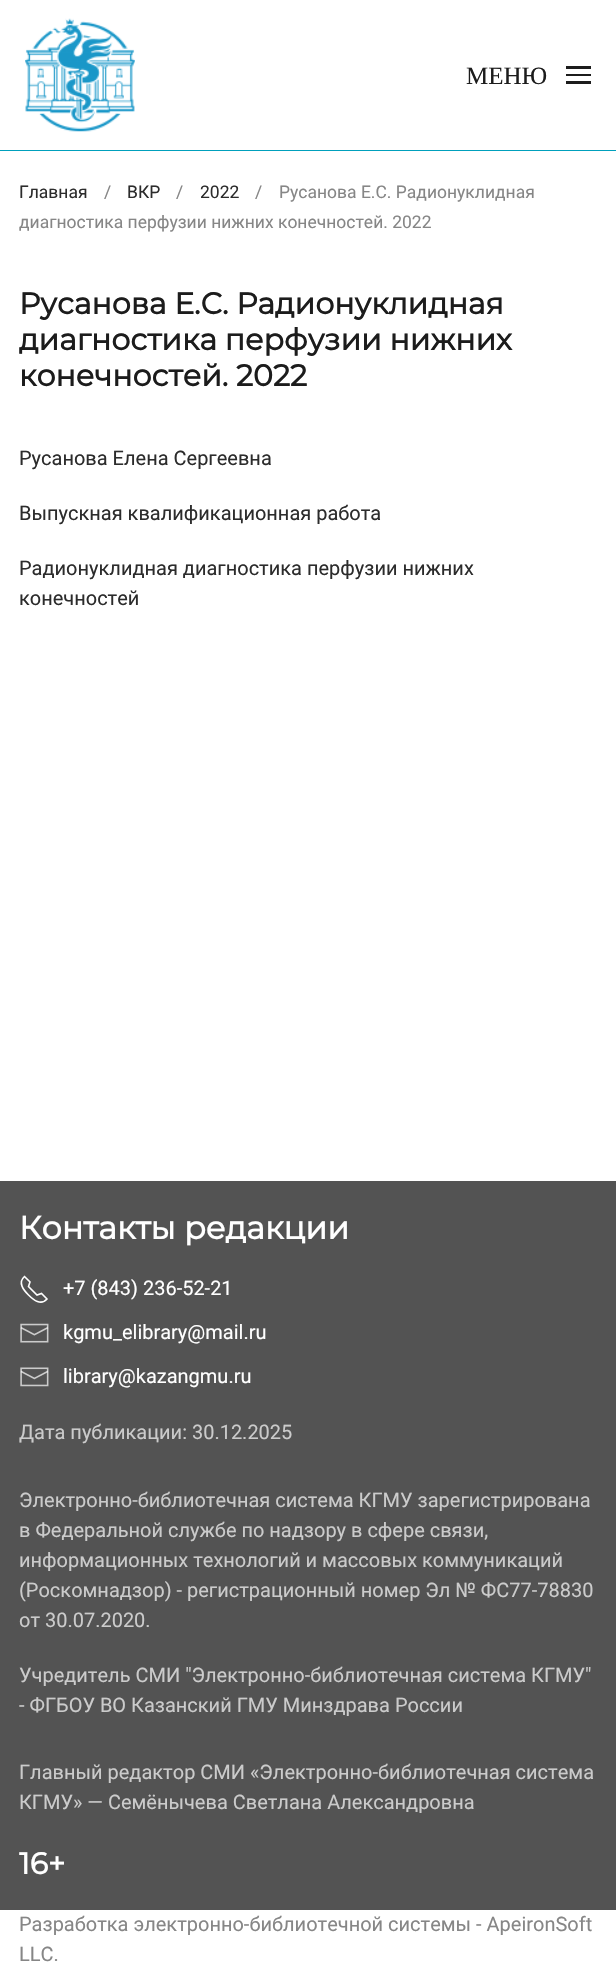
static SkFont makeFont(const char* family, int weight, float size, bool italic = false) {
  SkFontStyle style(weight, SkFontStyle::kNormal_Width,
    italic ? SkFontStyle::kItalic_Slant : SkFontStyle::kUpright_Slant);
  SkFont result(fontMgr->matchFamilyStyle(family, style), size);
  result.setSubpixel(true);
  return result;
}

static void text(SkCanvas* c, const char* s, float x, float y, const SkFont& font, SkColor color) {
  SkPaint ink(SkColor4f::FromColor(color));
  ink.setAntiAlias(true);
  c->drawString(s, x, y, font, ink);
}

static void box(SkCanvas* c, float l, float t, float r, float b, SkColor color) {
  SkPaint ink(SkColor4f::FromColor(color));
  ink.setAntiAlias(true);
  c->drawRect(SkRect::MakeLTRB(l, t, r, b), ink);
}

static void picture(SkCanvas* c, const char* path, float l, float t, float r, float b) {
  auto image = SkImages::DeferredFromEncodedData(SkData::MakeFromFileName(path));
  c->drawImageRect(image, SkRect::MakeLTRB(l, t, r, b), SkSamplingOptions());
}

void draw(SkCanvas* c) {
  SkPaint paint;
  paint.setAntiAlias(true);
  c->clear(0xffffffff);
  box(c, 0, 150, 616, 151, 0xff00a0bc);
  picture(c, "img_01.png", 25, 18, 135, 132);
  SkFont face1 = makeFont("Liberation Serif", 400, 25);
  text(c, "МЕНЮ", 466, 84, face1, 0xff1c1c1c);
  box(c, 566, 66, 591, 69, 0xff1c1c1c);
  box(c, 566, 74, 591, 76, 0xff1c1c1c);
  box(c, 566, 81, 591, 84, 0xff1c1c1c);
  SkFont face2 = makeFont("Roboto", 400, 17.5f);
  text(c, "/", 255, 198, face2, 0xff868686);
  text(c, "Русанова Е.С. Радионуклидная", 279, 198, face2, 0xff868686);
  text(c, "диагностика перфузии нижних конечностей. 2022", 19, 228, face2, 0xff868686);
  text(c, "Главная", 19, 198, face2, 0xff2c2c2c);
  text(c, "/", 104, 198, face2, 0xff868686);
  text(c, "ВКР", 127, 198, face2, 0xff2c2c2c);
  text(c, "/", 176, 198, face2, 0xff868686);
  text(c, "2022", 200, 198, face2, 0xff2c2c2c);
  SkFont face3 = makeFont("Montserrat", 700, 30);
  text(c, "Русанова Е.С. Радионуклидная", 19, 314, face3, 0xff1c1c1c);
  text(c, "диагностика перфузии нижних", 19, 350, face3, 0xff1c1c1c);
  text(c, "конечностей. 2022", 19, 386, face3, 0xff1c1c1c);
  SkFont face4 = makeFont("Roboto", 400, 20);
  text(c, "Русанова Елена Сергеевна", 19, 465, face4, 0xff2c2c2c);
  text(c, "Выпускная квалификационная работа", 19, 520, face4, 0xff2c2c2c);
  text(c, "Радионуклидная диагностика перфузии нижних", 19, 575, face4, 0xff2c2c2c);
  text(c, "конечностей", 19, 605, face4, 0xff2c2c2c);
  box(c, 0, 1181, 616, 1910, 0xff535353);
  SkFont face5 = makeFont("Montserrat", 700, 31.9f);
  text(c, "Контакты редакции", 19, 1239, face5, 0xffffffff);
  paint.setStyle(SkPaint::kStroke_Style);
  paint.setStrokeWidth(1.6f);
  paint.setColor(0xffffffff);
  c->drawPath(SkPathBuilder().moveTo(28.5f, 1295).cubicTo(33.5f, 1300, 41, 1306, 47, 1299).lineTo(41.5f, 1293.5f).lineTo(37, 1295).lineTo(28.5f, 1286.5f).lineTo(30, 1282).lineTo(24.5f, 1276.5f).cubicTo(17.5f, 1282.5f, 23.5f, 1290, 28.5f, 1295).detach(), paint);
  text(c, "+7 (843) 236-52-21", 63, 1295, face4, 0xffffffff);
  picture(c, "img_02.png", 20, 1323, 49, 1343);
  text(c, "kgmu_elibrary@mail.ru", 63, 1339, face4, 0xffffffff);
  picture(c, "img_03.png", 20, 1367, 49, 1387);
  text(c, "library@kazangmu.ru", 63, 1383, face4, 0xffffffff);
  text(c, "Дата публикации: 30.12.2025", 19, 1439, face4, 0xffcbcbcb);
  text(c, "Электронно-библиотечная система КГМУ зарегистрирована", 19, 1507, face4, 0xffcbcbcb);
  text(c, "в Федеральной службе по надзору в сфере связи,", 19, 1537, face4, 0xffcbcbcb);
  text(c, "информационных технологий и массовых коммуникаций", 19, 1567, face4, 0xffcbcbcb);
  text(c, "(Роскомнадзор) - регистрационный номер Эл № ФС77-78830", 19, 1597, face4, 0xffcbcbcb);
  text(c, "от 30.07.2020.", 19, 1627, face4, 0xffcbcbcb);
  text(c, "Учредитель СМИ \"Электронно-библиотечная система КГМУ\"", 19, 1682, face4, 0xffcbcbcb);
  text(c, "- ФГБОУ ВО Казанский ГМУ Минздрава России", 19, 1712, face4, 0xffcbcbcb);
  text(c, "Главный редактор СМИ «Электронно-библиотечная система", 19, 1779, face4, 0xffcbcbcb);
  text(c, "КГМУ» — Семёнычева Светлана Александровна", 19, 1809, face4, 0xffcbcbcb);
  text(c, "16+", 19, 1874, face3, 0xffffffff);
  text(c, "Разработка электронно-библиотечной системы - ApeironSoft", 19, 1931, face4, 0xff868686);
  text(c, "LLC.", 19, 1961, face4, 0xff868686);
}
